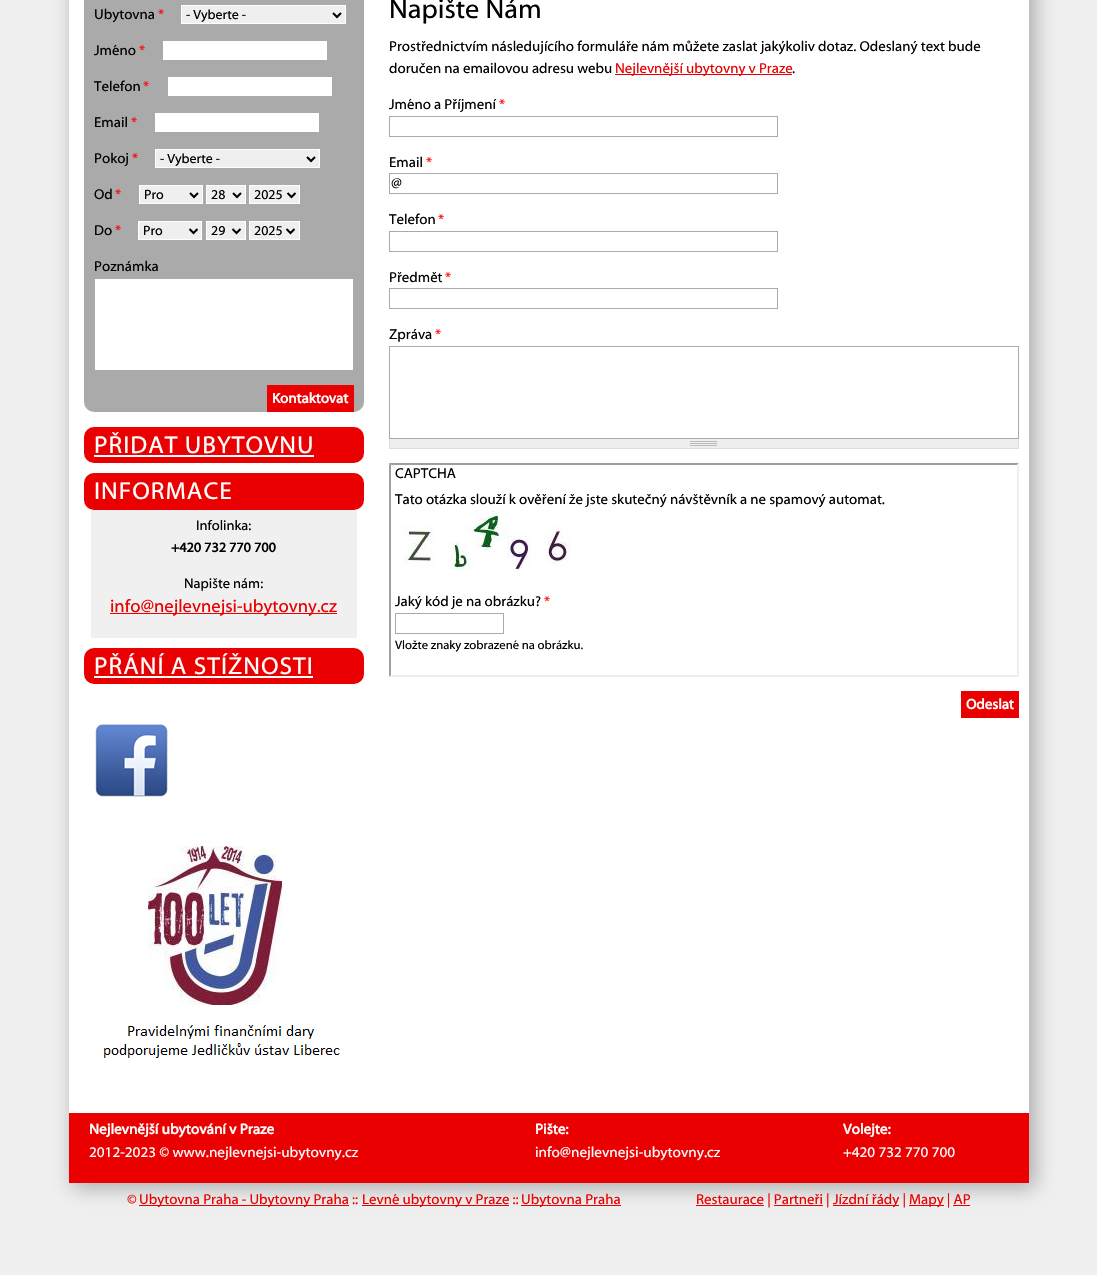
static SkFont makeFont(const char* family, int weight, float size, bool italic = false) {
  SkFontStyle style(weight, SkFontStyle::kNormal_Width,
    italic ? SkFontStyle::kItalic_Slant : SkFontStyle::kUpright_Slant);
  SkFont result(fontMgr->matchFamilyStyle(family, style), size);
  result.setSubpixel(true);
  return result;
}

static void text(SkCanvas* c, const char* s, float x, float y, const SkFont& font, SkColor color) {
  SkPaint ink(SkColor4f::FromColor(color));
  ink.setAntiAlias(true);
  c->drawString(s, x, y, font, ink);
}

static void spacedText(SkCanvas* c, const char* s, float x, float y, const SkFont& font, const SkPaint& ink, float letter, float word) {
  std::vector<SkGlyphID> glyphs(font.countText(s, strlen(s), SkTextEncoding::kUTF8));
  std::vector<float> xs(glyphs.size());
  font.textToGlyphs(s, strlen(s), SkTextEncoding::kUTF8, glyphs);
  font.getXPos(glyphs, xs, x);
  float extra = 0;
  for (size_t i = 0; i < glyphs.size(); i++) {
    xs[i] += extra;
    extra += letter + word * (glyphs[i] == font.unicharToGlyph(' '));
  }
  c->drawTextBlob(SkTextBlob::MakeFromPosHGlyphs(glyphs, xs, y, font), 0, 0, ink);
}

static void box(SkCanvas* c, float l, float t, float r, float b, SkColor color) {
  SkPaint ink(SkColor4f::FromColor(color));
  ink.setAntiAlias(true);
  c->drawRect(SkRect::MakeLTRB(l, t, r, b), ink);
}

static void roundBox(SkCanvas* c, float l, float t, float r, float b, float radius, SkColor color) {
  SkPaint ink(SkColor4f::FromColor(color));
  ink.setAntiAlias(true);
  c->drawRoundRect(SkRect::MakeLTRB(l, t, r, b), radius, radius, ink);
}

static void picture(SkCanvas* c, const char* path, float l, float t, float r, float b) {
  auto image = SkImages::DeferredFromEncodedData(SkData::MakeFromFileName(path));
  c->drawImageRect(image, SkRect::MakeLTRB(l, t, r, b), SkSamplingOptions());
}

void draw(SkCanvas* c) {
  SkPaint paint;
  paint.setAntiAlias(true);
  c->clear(0xfff0f0f0);
  paint.setColor(0xffaaaaaa);
  paint.setMaskFilter(SkMaskFilter::MakeBlur(kNormal_SkBlurStyle, 10));
  c->drawRect(SkRect::MakeLTRB(73, -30, 1035, 1188), paint);
  paint.setMaskFilter(nullptr);
  box(c, 69, 0, 1029, 1113, 0xffffffff);
  roundBox(c, 84, -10, 364, 412, 10, 0xffaaaaaa);
  SkFont face1 = makeFont("Myriad", 400, 14.4f);
  text(c, "Ubytovna", 94, 19, face1, 0xff000000);
  text(c, "*", 158, 19, face1, 0xffff0000);
  paint.setColor(0xffefefef);
  c->drawRect(SkRect::MakeLTRB(181.5f, 5.5f, 345.5f, 23.5f), paint);
  paint.setStyle(SkPaint::kStroke_Style);
  paint.setStrokeWidth(1);
  paint.setColor(0xffffffff);
  c->drawRect(SkRect::MakeLTRB(181.5f, 5.5f, 345.5f, 23.5f), paint);
  paint.setStrokeWidth(2);
  paint.setColor(0xff000000);
  c->drawPath(SkPathBuilder().moveTo(333, 13).lineTo(337, 17).lineTo(341, 13).detach(), paint);
  SkFont face2 = makeFont("Myriad", 400, 13.5f);
  text(c, "- Vyberte -", 186, 19, face2, 0xff000000);
  text(c, "Jméno", 94, 55, face1, 0xff000000);
  text(c, "*", 139, 55, face1, 0xffff0000);
  box(c, 163, 41, 327, 60, 0xffffffff);
  text(c, "Telefon", 94, 91, face1, 0xff000000);
  text(c, "*", 143, 91, face1, 0xffff0000);
  box(c, 168, 77, 332, 96, 0xffffffff);
  text(c, "Email", 94, 127, face1, 0xff000000);
  text(c, "*", 131, 127, face1, 0xffff0000);
  box(c, 155, 113, 319, 132, 0xffffffff);
  text(c, "Pokoj", 94, 163, face1, 0xff000000);
  text(c, "*", 132, 163, face1, 0xffff0000);
  paint.setStyle(SkPaint::kFill_Style);
  paint.setColor(0xffefefef);
  c->drawRect(SkRect::MakeLTRB(155.5f, 149.5f, 319.5f, 167.5f), paint);
  paint.setStyle(SkPaint::kStroke_Style);
  paint.setStrokeWidth(1);
  paint.setColor(0xffffffff);
  c->drawRect(SkRect::MakeLTRB(155.5f, 149.5f, 319.5f, 167.5f), paint);
  paint.setStrokeWidth(2);
  paint.setColor(0xff000000);
  c->drawPath(SkPathBuilder().moveTo(307, 157).lineTo(311, 161).lineTo(315, 157).detach(), paint);
  text(c, "- Vyberte -", 160, 163, face2, 0xff000000);
  text(c, "Od", 94, 199, face1, 0xff000000);
  text(c, "*", 115, 199, face1, 0xffff0000);
  paint.setStyle(SkPaint::kFill_Style);
  paint.setColor(0xffefefef);
  c->drawRect(SkRect::MakeLTRB(139.5f, 185.5f, 202.5f, 203.5f), paint);
  paint.setStyle(SkPaint::kStroke_Style);
  paint.setStrokeWidth(1);
  paint.setColor(0xffffffff);
  c->drawRect(SkRect::MakeLTRB(139.5f, 185.5f, 202.5f, 203.5f), paint);
  paint.setStrokeWidth(2);
  paint.setColor(0xff000000);
  c->drawPath(SkPathBuilder().moveTo(190, 193).lineTo(194, 197).lineTo(198, 193).detach(), paint);
  text(c, "Pro", 144, 199, face2, 0xff000000);
  paint.setStyle(SkPaint::kFill_Style);
  paint.setColor(0xffefefef);
  c->drawRect(SkRect::MakeLTRB(206.5f, 185.5f, 245.5f, 203.5f), paint);
  paint.setStyle(SkPaint::kStroke_Style);
  paint.setStrokeWidth(1);
  paint.setColor(0xffffffff);
  c->drawRect(SkRect::MakeLTRB(206.5f, 185.5f, 245.5f, 203.5f), paint);
  paint.setStrokeWidth(2);
  paint.setColor(0xff000000);
  c->drawPath(SkPathBuilder().moveTo(233, 193).lineTo(237, 197).lineTo(241, 193).detach(), paint);
  text(c, "28", 211, 199, face2, 0xff000000);
  paint.setStyle(SkPaint::kFill_Style);
  paint.setColor(0xffefefef);
  c->drawRect(SkRect::MakeLTRB(249.5f, 185.5f, 299.5f, 203.5f), paint);
  paint.setStyle(SkPaint::kStroke_Style);
  paint.setStrokeWidth(1);
  paint.setColor(0xffffffff);
  c->drawRect(SkRect::MakeLTRB(249.5f, 185.5f, 299.5f, 203.5f), paint);
  paint.setStrokeWidth(2);
  paint.setColor(0xff000000);
  c->drawPath(SkPathBuilder().moveTo(287.5f, 193).lineTo(291.5f, 197).lineTo(295.5f, 193).detach(), paint);
  text(c, "2025", 254, 199, face2, 0xff000000);
  text(c, "Do", 94, 235, face1, 0xff000000);
  text(c, "*", 115, 235, face1, 0xffff0000);
  paint.setStyle(SkPaint::kFill_Style);
  paint.setColor(0xffefefef);
  c->drawRect(SkRect::MakeLTRB(138.5f, 221.5f, 201.5f, 239.5f), paint);
  paint.setStyle(SkPaint::kStroke_Style);
  paint.setStrokeWidth(1);
  paint.setColor(0xffffffff);
  c->drawRect(SkRect::MakeLTRB(138.5f, 221.5f, 201.5f, 239.5f), paint);
  paint.setStrokeWidth(2);
  paint.setColor(0xff000000);
  c->drawPath(SkPathBuilder().moveTo(189.5f, 229).lineTo(193.5f, 233).lineTo(197.5f, 229).detach(), paint);
  text(c, "Pro", 143, 235, face2, 0xff000000);
  paint.setStyle(SkPaint::kFill_Style);
  paint.setColor(0xffefefef);
  c->drawRect(SkRect::MakeLTRB(206.5f, 221.5f, 245.5f, 239.5f), paint);
  paint.setStyle(SkPaint::kStroke_Style);
  paint.setStrokeWidth(1);
  paint.setColor(0xffffffff);
  c->drawRect(SkRect::MakeLTRB(206.5f, 221.5f, 245.5f, 239.5f), paint);
  paint.setStrokeWidth(2);
  paint.setColor(0xff000000);
  c->drawPath(SkPathBuilder().moveTo(232.5f, 229).lineTo(236.5f, 233).lineTo(240.5f, 229).detach(), paint);
  text(c, "29", 211, 235, face2, 0xff000000);
  paint.setStyle(SkPaint::kFill_Style);
  paint.setColor(0xffefefef);
  c->drawRect(SkRect::MakeLTRB(249.5f, 221.5f, 299.5f, 239.5f), paint);
  paint.setStyle(SkPaint::kStroke_Style);
  paint.setStrokeWidth(1);
  paint.setColor(0xffffffff);
  c->drawRect(SkRect::MakeLTRB(249.5f, 221.5f, 299.5f, 239.5f), paint);
  paint.setStrokeWidth(2);
  paint.setColor(0xff000000);
  c->drawPath(SkPathBuilder().moveTo(286.5f, 229).lineTo(290.5f, 233).lineTo(294.5f, 229).detach(), paint);
  text(c, "2025", 254, 235, face2, 0xff000000);
  text(c, "Poznámka", 94, 271, face1, 0xff000000);
  box(c, 95, 279, 353, 370, 0xffffffff);
  box(c, 267, 385, 354, 412, 0xffea0000);
  SkFont face3 = makeFont("Myriad", 700, 14.4f);
  text(c, "Kontaktovat", 272, 403, face3, 0xffffffff);
  roundBox(c, 84, 427, 364, 463, 10, 0xffea0000);
  SkFont face4 = makeFont("Myriad", 400, 24.5f);
  paint.setStyle(SkPaint::kFill_Style);
  paint.setColor(0xffffffff);
  spacedText(c, "PŘIDAT UBYTOVNU", 94, 453, face4, paint, 1, 0);
  box(c, 94, 455, 314, 457, 0xffffffff);
  roundBox(c, 84, 473, 364, 510, 10, 0xffea0000);
  spacedText(c, "INFORMACE", 94, 499, face4, paint, 1, 0);
  box(c, 91, 510, 357, 638, 0xfff0f0f0);
  SkFont face5 = makeFont("Myriad", 400, 14);
  text(c, "Infolinka:", 196, 530, face5, 0xff000000);
  SkFont face6 = makeFont("Myriad", 700, 13.75f);
  text(c, "+420 732 770 700", 171, 552, face6, 0xff000000);
  text(c, "Napište nám:", 184, 588, face5, 0xff000000);
  box(c, 110, 613, 337, 614, 0xffea0000);
  SkFont face7 = makeFont("Myriad", 400, 18);
  text(c, "info@nejlevnejsi-ubytovny.cz", 110, 612, face7, 0xffea0000);
  roundBox(c, 84, 648, 364, 684, 10, 0xffea0000);
  spacedText(c, "PŘÁNÍ A STÍŽNOSTI", 94, 674, face4, paint, 1, 0);
  box(c, 94, 676, 313, 678, 0xffffffff);
  picture(c, "img_01.png", 95, 724, 168, 797);
  picture(c, "img_02.png", 103, 846, 340, 1058);
  SkFont face8 = makeFont("Myriad", 400, 27.5f);
  text(c, "Napište Nám", 389, 18, face8, 0xff000000);
  text(c, "Prostřednictvím následujícího formuláře nám můžete zaslat jakýkoliv dotaz. Odeslaný text bude", 389, 51, face1, 0xff000000);
  text(c, "doručen na emailovou adresu webu", 389, 73, face1, 0xff000000);
  box(c, 615, 74, 792, 75, 0xffea0000);
  text(c, "Nejlevnější ubytovny v Praze", 615, 73, face1, 0xffea0000);
  text(c, ".", 792, 73, face1, 0xff000000);
  text(c, "Jméno a Příjmení", 389, 109, face1, 0xff000000);
  text(c, "*", 499, 109, face1, 0xffff0000);
  paint.setStyle(SkPaint::kStroke_Style);
  paint.setStrokeWidth(1);
  paint.setColor(0xffaaaaaa);
  c->drawRect(SkRect::MakeLTRB(389.5f, 116.5f, 777.5f, 136.5f), paint);
  text(c, "Email", 389, 167, face1, 0xff000000);
  text(c, "*", 426, 167, face1, 0xffff0000);
  c->drawRect(SkRect::MakeLTRB(389.5f, 173.5f, 777.5f, 193.5f), paint);
  text(c, "@", 391, 188, face1, 0xff000000);
  text(c, "Telefon", 389, 224, face1, 0xff000000);
  text(c, "*", 438, 224, face1, 0xffff0000);
  c->drawRect(SkRect::MakeLTRB(389.5f, 231.5f, 777.5f, 251.5f), paint);
  text(c, "Předmět", 389, 282, face1, 0xff000000);
  text(c, "*", 445, 282, face1, 0xffff0000);
  c->drawRect(SkRect::MakeLTRB(389.5f, 288.5f, 777.5f, 308.5f), paint);
  text(c, "Zpráva", 389, 339, face1, 0xff000000);
  text(c, "*", 435, 339, face1, 0xffff0000);
  c->drawRect(SkRect::MakeLTRB(389.5f, 346.5f, 1018.5f, 438.5f), paint);
  box(c, 390, 439, 1018, 448, 0xffeeeeee);
  picture(c, "img_03.png", 690, 441, 717, 446);
  box(c, 1018, 439, 1019, 449, 0xffdddddd);
  box(c, 389, 448, 1019, 449, 0xffdddddd);
  box(c, 389, 439, 390, 449, 0xffdddddd);
  paint.setStyle(SkPaint::kFill_Style);
  paint.setColor(0xff9f9f9f);
  c->drawPath(SkPathBuilder().moveTo(389, 463).lineTo(1019, 463).lineTo(1017, 465).lineTo(391, 465).close().detach(), paint);
  paint.setColor(0xffefefef);
  c->drawPath(SkPathBuilder().moveTo(1019, 463).lineTo(1019, 677).lineTo(1017, 675).lineTo(1017, 465).close().detach(), paint);
  c->drawPath(SkPathBuilder().moveTo(1019, 677).lineTo(389, 677).lineTo(391, 675).lineTo(1017, 675).close().detach(), paint);
  paint.setColor(0xff9f9f9f);
  c->drawPath(SkPathBuilder().moveTo(389, 677).lineTo(389, 463).lineTo(391, 465).lineTo(391, 675).close().detach(), paint);
  text(c, "CAPTCHA", 395, 478, face1, 0xff000000);
  text(c, "Tato otázka slouží k ověření že jste skutečný návštěvník a ne spamový automat.", 395, 504, face1, 0xff000000);
  picture(c, "img_04.png", 403, 510, 571, 570);
  text(c, "Jaký kód je na obrázku?", 395, 606, face1, 0xff000000);
  text(c, "*", 544, 606, face1, 0xffff0000);
  paint.setStyle(SkPaint::kStroke_Style);
  paint.setColor(0xffaaaaaa);
  c->drawRect(SkRect::MakeLTRB(395.5f, 613.5f, 503.5f, 633.5f), paint);
  SkFont face9 = makeFont("Myriad", 400, 12.25f);
  text(c, "Vložte znaky zobrazené na obrázku.", 395, 649, face9, 0xff000000);
  box(c, 961, 691, 1019, 718, 0xffea0000);
  text(c, "Odeslat", 966, 709, face3, 0xffffffff);
  box(c, 69, 1113, 1029, 1183, 0xffea0000);
  SkFont face10 = makeFont("Myriad", 700, 14.7f);
  text(c, "Nejlevnější ubytování v Praze", 89, 1134, face10, 0xffffffff);
  SkFont face11 = makeFont("Myriad", 400, 14.7f);
  text(c, "2012-2023 © www.nejlevnejsi-ubytovny.cz", 89, 1157, face11, 0xffffffff);
  text(c, "Pište:", 535, 1134, face10, 0xffffffff);
  text(c, "info@nejlevnejsi-ubytovny.cz", 535, 1157, face11, 0xffffffff);
  text(c, "Volejte:", 843, 1134, face10, 0xffffffff);
  text(c, "+420 732 770 700", 843, 1157, face11, 0xffffffff);
  text(c, "©", 127, 1204, face1, 0xffea0000);
  box(c, 139, 1205, 349, 1206, 0xffea0000);
  text(c, "Ubytovna Praha - Ubytovny Praha ::", 139, 1204, face1, 0xffea0000);
  box(c, 362, 1205, 509, 1206, 0xffea0000);
  text(c, "Levné ubytovny v Praze ::", 362, 1204, face1, 0xffea0000);
  box(c, 521, 1205, 621, 1206, 0xffea0000);
  text(c, "Ubytovna Praha", 521, 1204, face1, 0xffea0000);
  box(c, 696, 1205, 764, 1206, 0xffea0000);
  text(c, "Restaurace | Partneři |", 696, 1204, face1, 0xffea0000);
  box(c, 833, 1205, 899, 1206, 0xffea0000);
  text(c, "Jízdní řády |", 833, 1204, face1, 0xffea0000);
  box(c, 909, 1205, 944, 1206, 0xffea0000);
  text(c, "Mapy | AP", 909, 1204, face1, 0xffea0000);
  box(c, 774, 1205, 823, 1206, 0xffea0000);
  box(c, 953, 1205, 970, 1206, 0xffea0000);
}
